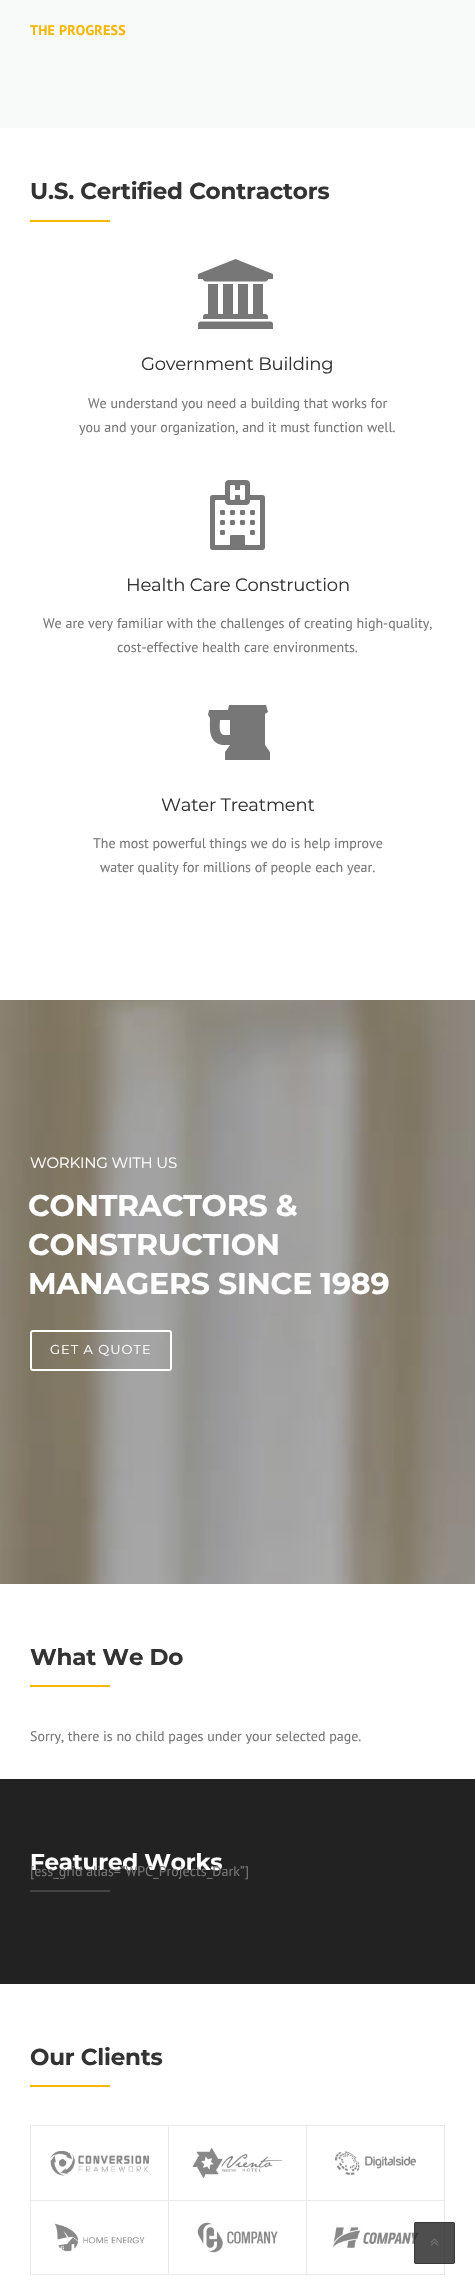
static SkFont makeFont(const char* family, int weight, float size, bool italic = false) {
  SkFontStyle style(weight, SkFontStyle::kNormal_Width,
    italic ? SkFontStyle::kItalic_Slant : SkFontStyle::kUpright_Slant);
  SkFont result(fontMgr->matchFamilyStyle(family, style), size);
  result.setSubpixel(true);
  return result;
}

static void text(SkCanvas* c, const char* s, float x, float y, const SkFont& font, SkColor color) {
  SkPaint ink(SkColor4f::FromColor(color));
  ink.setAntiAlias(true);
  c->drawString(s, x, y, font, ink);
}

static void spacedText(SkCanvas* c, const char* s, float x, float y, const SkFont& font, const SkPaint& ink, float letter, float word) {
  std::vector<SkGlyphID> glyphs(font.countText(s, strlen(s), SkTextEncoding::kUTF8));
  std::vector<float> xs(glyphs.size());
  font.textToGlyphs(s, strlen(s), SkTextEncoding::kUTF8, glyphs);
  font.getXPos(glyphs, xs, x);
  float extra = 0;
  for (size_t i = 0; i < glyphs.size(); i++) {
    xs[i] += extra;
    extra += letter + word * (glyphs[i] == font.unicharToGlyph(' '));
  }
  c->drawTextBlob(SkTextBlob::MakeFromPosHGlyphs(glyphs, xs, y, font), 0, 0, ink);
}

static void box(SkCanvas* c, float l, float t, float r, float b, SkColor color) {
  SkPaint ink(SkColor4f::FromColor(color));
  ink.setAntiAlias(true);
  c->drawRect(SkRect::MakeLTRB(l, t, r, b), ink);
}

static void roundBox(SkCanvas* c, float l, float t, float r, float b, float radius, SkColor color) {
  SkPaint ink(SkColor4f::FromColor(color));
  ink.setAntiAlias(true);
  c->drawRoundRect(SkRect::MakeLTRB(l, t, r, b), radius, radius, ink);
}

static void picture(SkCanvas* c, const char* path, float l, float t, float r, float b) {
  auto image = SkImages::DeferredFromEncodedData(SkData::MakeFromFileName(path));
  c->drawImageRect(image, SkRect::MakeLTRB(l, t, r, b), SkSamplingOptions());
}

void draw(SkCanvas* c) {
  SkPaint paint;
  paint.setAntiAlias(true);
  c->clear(0xffffffff);
  box(c, 0, 0, 475, 128, 0xfff8f9f9);
  SkFont face1 = makeFont("PT Sans", 700, 14);
  paint.setColor(0xfffab702);
  spacedText(c, "THE PROGRESS", 30, 35, face1, paint, 0.25f, 0);
  SkFont face2 = makeFont("Montserrat", 700, 23);
  paint.setColor(0xff333333);
  spacedText(c, "U.S. Certified Contractors", 30, 199, face2, paint, -0.2f, 0);
  box(c, 30, 220, 110, 222, 0xfffab702);
  picture(c, "img_01.png", 198, 259, 273, 329);
  SkFont face3 = makeFont("Montserrat", 400, 18);
  spacedText(c, "Government Building", 141, 370, face3, paint, -0.2f, 0);
  SkFont face4 = makeFont("PT Sans", 400, 14);
  text(c, "We understand you need a building that works for", 88, 408, face4, 0xff777777);
  text(c, "you and your organization, and it must function well.", 79, 432, face4, 0xff777777);
  picture(c, "img_02.png", 210, 480, 265, 550);
  spacedText(c, "Health Care Construction", 126, 591, face3, paint, -0.2f, 0);
  text(c, "We are very familiar with the challenges of creating high-quality,", 43, 628, face4, 0xff777777);
  text(c, "cost-effective health care environments.", 117, 652, face4, 0xff777777);
  paint.setColor(0xff777777);
  c->drawPath(SkPathBuilder().moveTo(230, 735).lineTo(230, 720).lineTo(220, 720).cubicTo(220, 724, 218, 734, 224, 735).close().moveTo(270, 752).lineTo(270, 760).lineTo(225, 760).lineTo(225, 752).lineTo(230, 745).lineTo(222, 745).cubicTo(208, 742, 210, 728, 210, 718).lineTo(208, 715).lineTo(209, 710).lineTo(228, 710).lineTo(229, 705).lineTo(266, 705).lineTo(268, 712).lineTo(265, 714).lineTo(265, 745).close().detach(), paint);
  paint.setColor(0xff333333);
  spacedText(c, "Water Treatment", 161, 811, face3, paint, -0.2f, 0);
  text(c, "The most powerful things we do is help improve", 93, 848, face4, 0xff777777);
  text(c, "water quality for millions of people each year.", 100, 872, face4, 0xff777777);
  picture(c, "img_03.png", 0, 1000, 475, 1584);
  SkFont face5 = makeFont("Montserrat", 400, 15);
  paint.setColor(0xffffffff);
  spacedText(c, "WORKING WITH US", 30, 1168, face5, paint, -0.2f, 0);
  SkFont face6 = makeFont("Montserrat", 700, 30);
  spacedText(c, "CONTRACTORS &", 28, 1216, face6, paint, -0.2f, 0);
  spacedText(c, "CONSTRUCTION", 28, 1255, face6, paint, -0.2f, 0);
  spacedText(c, "MANAGERS SINCE 1989", 28, 1294, face6, paint, -0.2f, 0);
  paint.setStyle(SkPaint::kStroke_Style);
  paint.setStrokeWidth(2);
  c->drawRoundRect(SkRect::MakeLTRB(31, 1331, 171, 1370), 2, 2, paint);
  SkFont face7 = makeFont("Montserrat", 400, 13);
  paint.setStyle(SkPaint::kFill_Style);
  spacedText(c, "GET A QUOTE", 50, 1354, face7, paint, 1, 0);
  paint.setColor(0xff333333);
  spacedText(c, "What We Do", 30, 1665, face2, paint, -0.2f, 0);
  box(c, 30, 1685, 110, 1687, 0xfffab702);
  text(c, "Sorry, there is no child pages under your selected page.", 30, 1741, face4, 0xff777777);
  box(c, 0, 1779, 475, 1984, 0xff222222);
  paint.setColor(0xffffffff);
  spacedText(c, "Featured Works", 30, 1870, face2, paint, -0.2f, 0);
  box(c, 30, 1890, 110, 1892, 0xff444444);
  text(c, "[ess_grid alias=”WPC_Projects_Dark”]", 30, 1876, face4, 0xff777777);
  paint.setColor(0xff333333);
  spacedText(c, "Our Clients", 30, 2065, face2, paint, -0.2f, 0);
  box(c, 30, 2085, 110, 2087, 0xfffab702);
  box(c, 30, 2125, 445, 2126, 0xffe9e9e9);
  box(c, 444, 2125, 445, 2275, 0xffe9e9e9);
  box(c, 30, 2274, 445, 2275, 0xffe9e9e9);
  box(c, 30, 2125, 31, 2275, 0xffe9e9e9);
  picture(c, "img_04.png", 50, 2151, 149, 2176);
  box(c, 306, 2200, 445, 2201, 0xffe9e9e9);
  box(c, 306, 2200, 307, 2275, 0xffe9e9e9);
  box(c, 168, 2200, 307, 2201, 0xffe9e9e9);
  box(c, 168, 2200, 169, 2275, 0xffe9e9e9);
  box(c, 30, 2200, 169, 2201, 0xffe9e9e9);
  box(c, 168, 2125, 169, 2201, 0xffe9e9e9);
  picture(c, "img_05.png", 192, 2147, 283, 2179);
  box(c, 306, 2125, 307, 2201, 0xffe9e9e9);
  picture(c, "img_06.png", 335, 2151, 416, 2175);
  picture(c, "img_07.png", 54, 2223, 145, 2252);
  picture(c, "img_08.png", 197, 2222, 278, 2253);
  picture(c, "img_09.png", 332, 2227, 419, 2248);
  roundBox(c, 414, 2222, 455, 2264, 2, 0xcc222222);
  paint.setStyle(SkPaint::kStroke_Style);
  paint.setStrokeWidth(1);
  paint.setColor(0xcc333333);
  c->drawRoundRect(SkRect::MakeLTRB(414.5f, 2222.5f, 454.5f, 2263.5f), 1.5f, 1.5f, paint);
  picture(c, "img_10.png", 430, 2238, 439, 2246);
}
